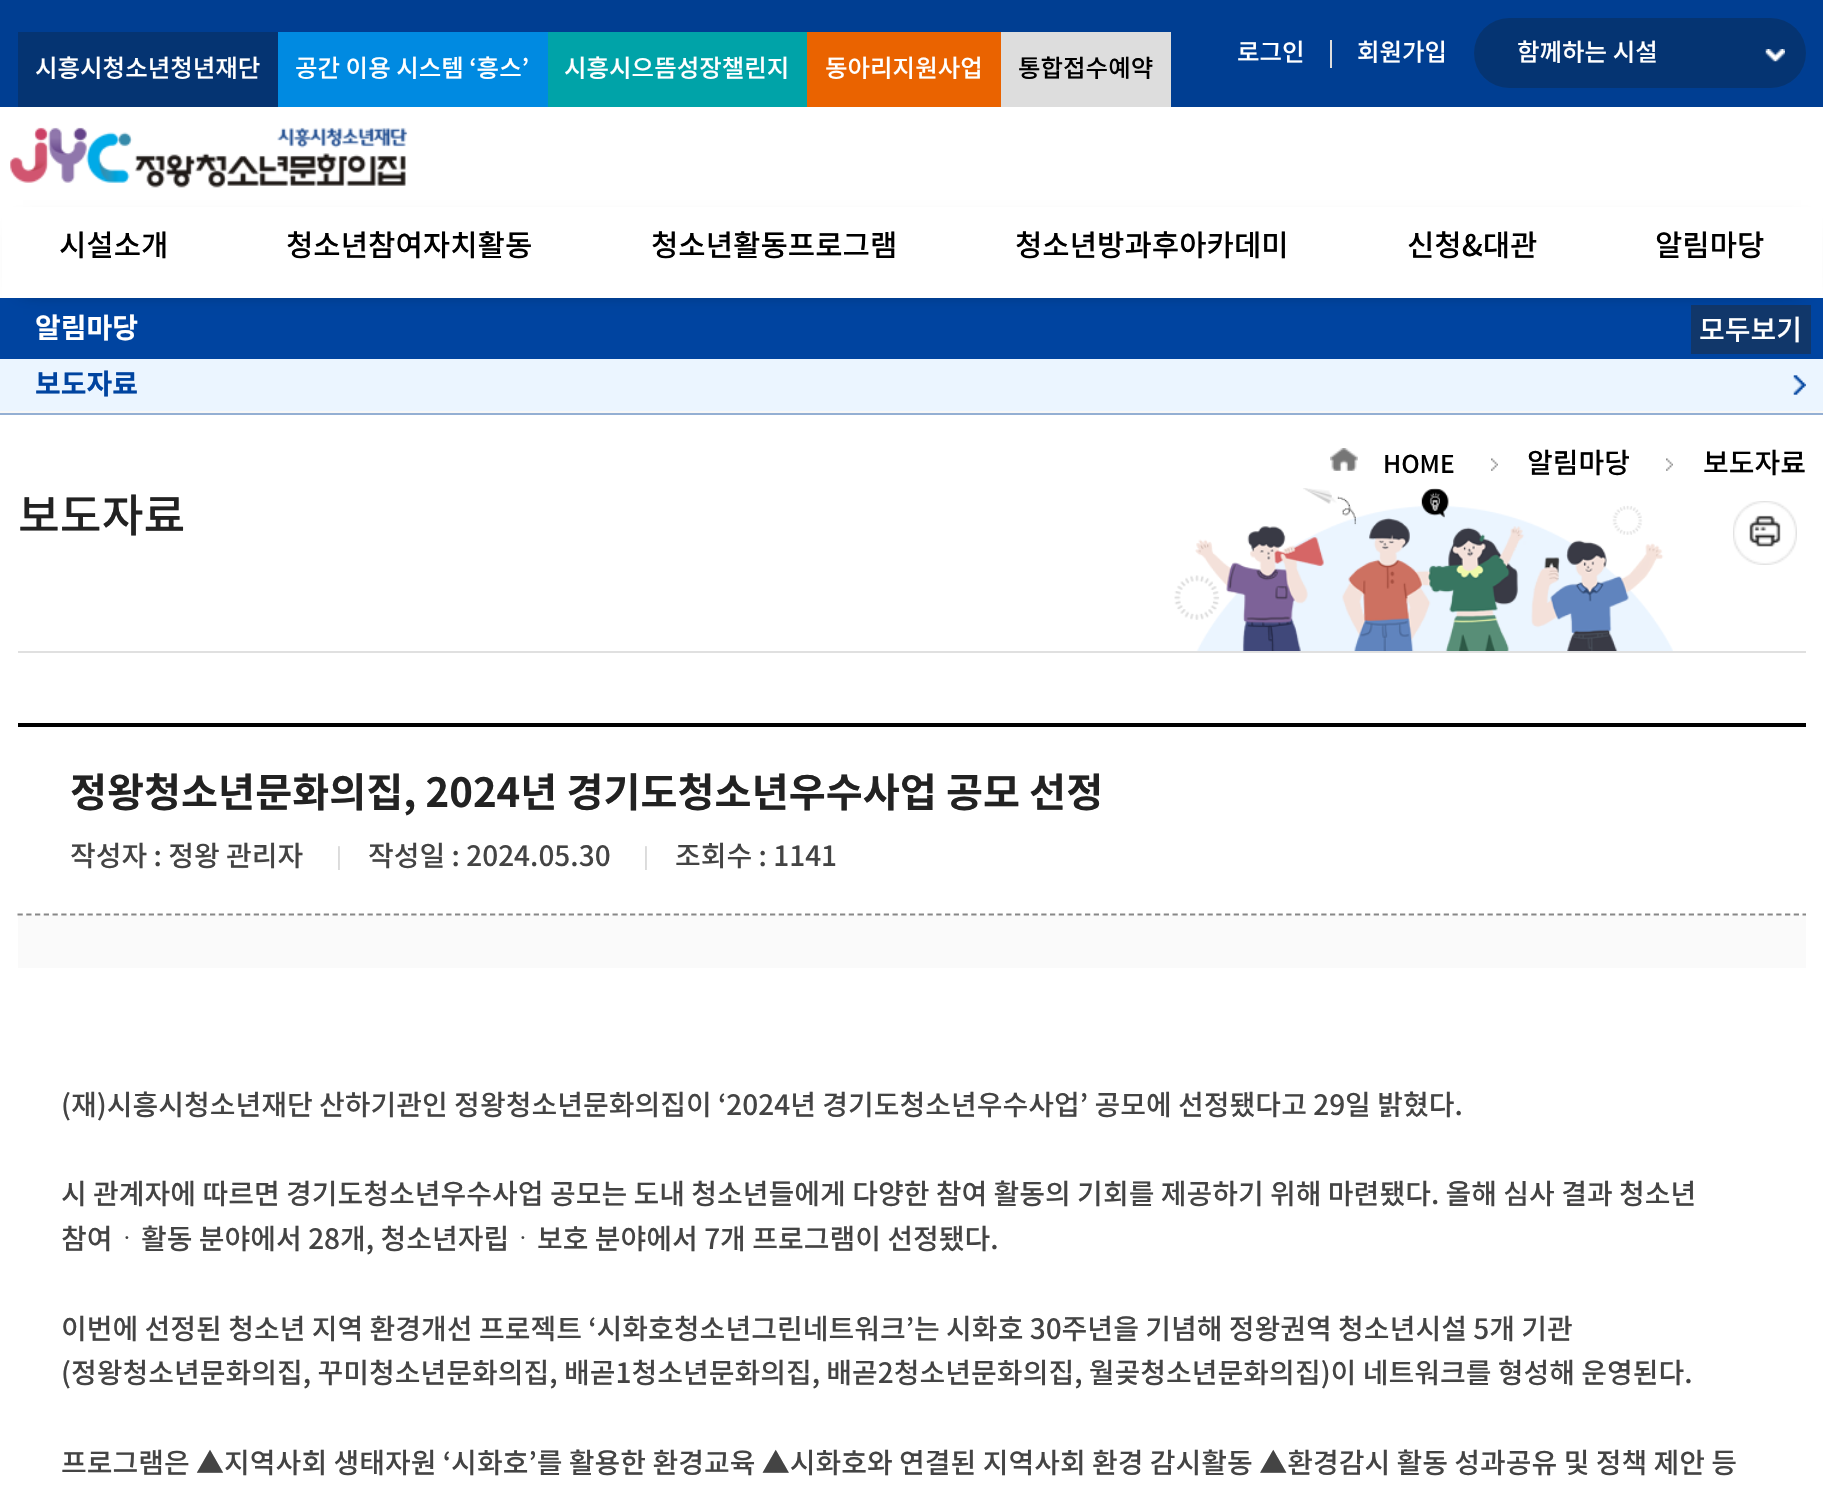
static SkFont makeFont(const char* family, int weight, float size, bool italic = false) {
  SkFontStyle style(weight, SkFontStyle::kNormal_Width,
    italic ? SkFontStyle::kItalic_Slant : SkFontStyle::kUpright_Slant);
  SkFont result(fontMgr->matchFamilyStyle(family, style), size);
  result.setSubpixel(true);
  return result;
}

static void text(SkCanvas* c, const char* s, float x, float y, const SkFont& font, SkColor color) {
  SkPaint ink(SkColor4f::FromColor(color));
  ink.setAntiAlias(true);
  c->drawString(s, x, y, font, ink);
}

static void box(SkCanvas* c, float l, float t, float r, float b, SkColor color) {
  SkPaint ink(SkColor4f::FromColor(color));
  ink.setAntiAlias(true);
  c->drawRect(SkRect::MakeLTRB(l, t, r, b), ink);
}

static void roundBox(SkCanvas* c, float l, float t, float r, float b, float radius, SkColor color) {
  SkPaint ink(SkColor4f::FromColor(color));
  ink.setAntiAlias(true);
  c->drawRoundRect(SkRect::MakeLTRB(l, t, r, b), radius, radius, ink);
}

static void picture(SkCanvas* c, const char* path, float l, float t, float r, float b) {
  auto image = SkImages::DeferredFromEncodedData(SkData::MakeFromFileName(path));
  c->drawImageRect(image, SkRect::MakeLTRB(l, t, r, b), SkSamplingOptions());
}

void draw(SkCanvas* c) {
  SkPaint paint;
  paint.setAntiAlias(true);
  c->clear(0xffffffff);
  box(c, 0, 0, 1823, 107, 0xff003e92);
  SkFont face1 = makeFont("Noto Sans KR", 500, 24.5f);
  text(c, "로그인", 1237, 61, face1, 0xffffffff);
  box(c, 1330, 40, 1332, 68, 0xffdddddd);
  text(c, "회원가입", 1357, 61, face1, 0xffffffff);
  roundBox(c, 1474, 18, 1806, 88, 35, 0xff053472);
  text(c, "함께하는 시설", 1517, 61, face1, 0xffffffff);
  picture(c, "img_01.png", 1765, 49, 1785, 62);
  box(c, 18, 32, 278, 107, 0xff053472);
  text(c, "시흥시청소년청년재단", 35, 77, face1, 0xffffffff);
  box(c, 278, 32, 548, 107, 0xff008ae1);
  text(c, "공간 이용 시스템 ‘흥스’", 295, 77, face1, 0xffffffff);
  box(c, 548, 32, 807, 107, 0xff00a3a8);
  text(c, "시흥시으뜸성장챌린지", 564, 77, face1, 0xffffffff);
  box(c, 807, 32, 1001, 107, 0xffea6300);
  text(c, "동아리지원사업", 825, 77, face1, 0xffffffff);
  box(c, 1001, 32, 1171, 107, 0xffdddddd);
  text(c, "통합접수예약", 1018, 77, face1, 0xff000000);
  picture(c, "img_02.png", 10, 127, 408, 188);
  box(c, 0, 298, 1823, 359, 0xff0044a0);
  box(c, 1691, 305, 1811, 354, 0xff11376a);
  paint.setColor(0xbf000000);
  paint.setMaskFilter(SkMaskFilter::MakeBlur(kNormal_SkBlurStyle, 9.5f));
  c->drawRect(SkRect::MakeLTRB(23, 228, 1801, 287), paint);
  paint.setMaskFilter(nullptr);
  box(c, 2, 207, 1822, 298, 0xffffffff);
  SkFont face2 = makeFont("Noto Sans KR", 500, 29.75f);
  text(c, "시설소개", 59, 256, face2, 0xff000000);
  text(c, "청소년참여자치활동", 286, 256, face2, 0xff000000);
  text(c, "청소년활동프로그램", 651, 256, face2, 0xff000000);
  text(c, "청소년방과후아카데미", 1015, 256, face2, 0xff000000);
  text(c, "신청&대관", 1407, 256, face2, 0xff000000);
  text(c, "알림마당", 1655, 256, face2, 0xff000000);
  box(c, 0, 413, 1823, 415, 0xff94afd3);
  SkFont face3 = makeFont("Noto Sans KR", 700, 28);
  text(c, "알림마당", 35, 338, face3, 0xffffffff);
  box(c, 0, 359, 1823, 411, 0xffebf5ff);
  box(c, 0, 411, 1823, 413, 0xfff7f7f7);
  text(c, "보도자료", 35, 394, face3, 0xff0044a0);
  picture(c, "img_03.png", 1793, 375, 1806, 395);
  SkFont face4 = makeFont("Noto Sans KR", 500, 28);
  text(c, "모두보기", 1699, 340, face4, 0xffffffff);
  picture(c, "img_04.png", 1174, 488, 1673, 651);
  box(c, 18, 651, 1806, 653, 0xffe0e0e0);
  picture(c, "img_05.png", 1330, 448, 1358, 471);
  text(c, "HOME", 1383, 473, face1, 0xff000000);
  picture(c, "img_06.png", 1491, 458, 1498, 471);
  text(c, "알림마당", 1527, 473, face4, 0xff000000);
  picture(c, "img_06.png", 1666, 458, 1673, 471);
  text(c, "보도자료", 1703, 473, face4, 0xff000000);
  SkFont face5 = makeFont("Noto Sans KR", 500, 45.5f);
  text(c, "보도자료", 18, 532, face5, 0xff222222);
  picture(c, "img_07.png", 1733, 501, 1797, 565);
  box(c, 18, 723, 1806, 727, 0xff000000);
  box(c, 18, 915, 1806, 968, 0xfffafafa);
  paint.setStyle(SkPaint::kStroke_Style);
  paint.setStrokeWidth(1.8f);
  paint.setColor(0xff888888);
  paint.setPathEffect(SkDashPathEffect::Make({{5.25f, 3.5f}}, 0));
  c->drawPath(SkPathBuilder().moveTo(17.5f, 914.5f).lineTo(1806, 914.5f).detach(), paint);
  paint.setPathEffect(nullptr);
  SkFont face6 = makeFont("Noto Sans KR", 700, 40.25f);
  text(c, "정왕청소년문화의집, 2024년 경기도청소년우수사업 공모 선정", 70, 807, face6, 0xff222222);
  text(c, "작성자 : 정왕 관리자", 70, 866, face4, 0xff444444);
  SkFont face7 = makeFont("Noto Sans KR", 500, 21);
  text(c, "|", 336, 864, face7, 0xffd7d7d7);
  text(c, "작성일 : 2024.05.30", 368, 866, face4, 0xff444444);
  text(c, "|", 643, 864, face7, 0xffd7d7d7);
  text(c, "조회수 : 1141", 675, 866, face4, 0xff444444);
  text(c, "(재)시흥시청소년재단 산하기관인 정왕청소년문화의집이 ‘2024년 경기도청소년우수사업’ 공모에 선정됐다고 29일 밝혔다.", 61, 1115, face4, 0xff444444);
  text(c, "시 관계자에 따르면 경기도청소년우수사업 공모는 도내 청소년들에게 다양한 참여 활동의 기회를 제공하기 위해 마련됐다. 올해 심사 결과 청소년", 61, 1204, face4, 0xff444444);
  text(c, "참여", 61, 1249, face4, 0xff444444);
  SkFont face8 = makeFont("WenQuanYi Zen Hei", 500, 28);
  text(c, "ㆍ", 113, 1249, face8, 0xff444444);
  text(c, "활동 분야에서 28개, 청소년자립", 141, 1249, face4, 0xff444444);
  text(c, "ㆍ", 509, 1249, face8, 0xff444444);
  text(c, "보호 분야에서 7개 프로그램이 선정됐다.", 537, 1249, face4, 0xff444444);
  text(c, "이번에 선정된 청소년 지역 환경개선 프로젝트 ‘시화호청소년그린네트워크’는 시화호 30주년을 기념해 정왕권역 청소년시설 5개 기관", 61, 1339, face4, 0xff444444);
  text(c, "(정왕청소년문화의집, 꾸미청소년문화의집, 배곧1청소년문화의집, 배곧2청소년문화의집, 월곶청소년문화의집)이 네트워크를 형성해 운영된다.", 61, 1383, face4, 0xff444444);
  text(c, "프로그램은 ▲지역사회 생태자원 ‘시화호’를 활용한 환경교육 ▲시화호와 연결된 지역사회 환경 감시활동 ▲환경감시 활동 성과공유 및 정책 제안 등", 61, 1473, face4, 0xff444444);
}
